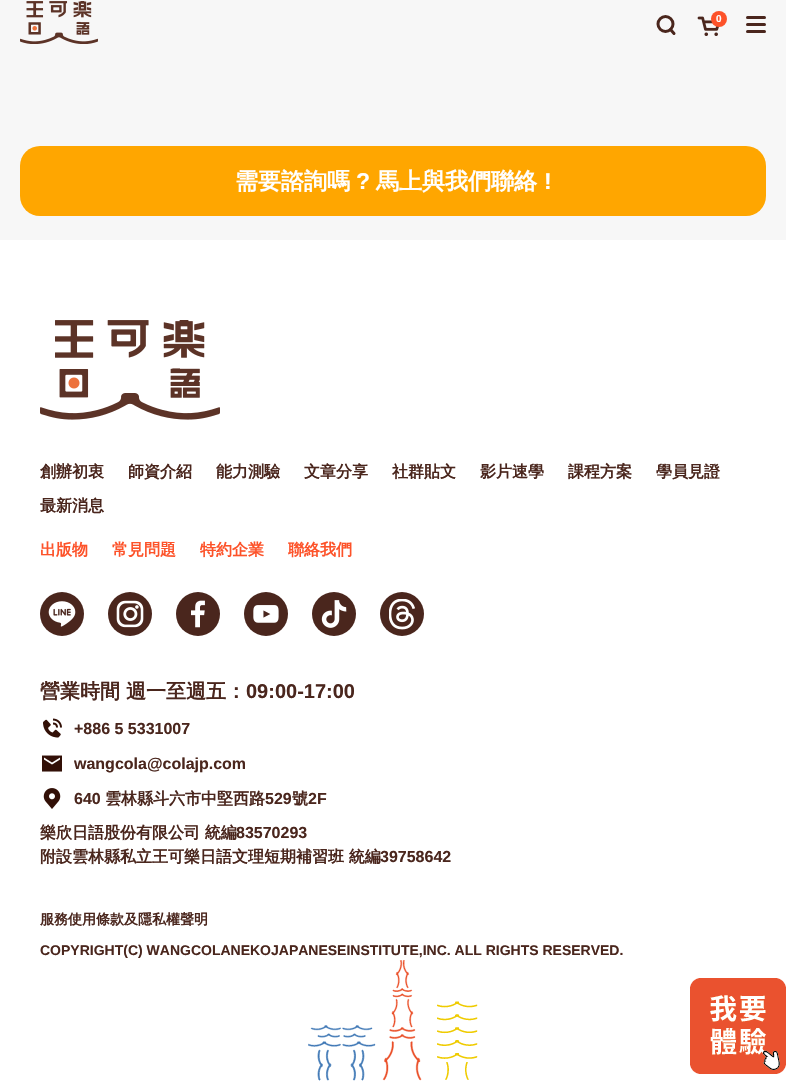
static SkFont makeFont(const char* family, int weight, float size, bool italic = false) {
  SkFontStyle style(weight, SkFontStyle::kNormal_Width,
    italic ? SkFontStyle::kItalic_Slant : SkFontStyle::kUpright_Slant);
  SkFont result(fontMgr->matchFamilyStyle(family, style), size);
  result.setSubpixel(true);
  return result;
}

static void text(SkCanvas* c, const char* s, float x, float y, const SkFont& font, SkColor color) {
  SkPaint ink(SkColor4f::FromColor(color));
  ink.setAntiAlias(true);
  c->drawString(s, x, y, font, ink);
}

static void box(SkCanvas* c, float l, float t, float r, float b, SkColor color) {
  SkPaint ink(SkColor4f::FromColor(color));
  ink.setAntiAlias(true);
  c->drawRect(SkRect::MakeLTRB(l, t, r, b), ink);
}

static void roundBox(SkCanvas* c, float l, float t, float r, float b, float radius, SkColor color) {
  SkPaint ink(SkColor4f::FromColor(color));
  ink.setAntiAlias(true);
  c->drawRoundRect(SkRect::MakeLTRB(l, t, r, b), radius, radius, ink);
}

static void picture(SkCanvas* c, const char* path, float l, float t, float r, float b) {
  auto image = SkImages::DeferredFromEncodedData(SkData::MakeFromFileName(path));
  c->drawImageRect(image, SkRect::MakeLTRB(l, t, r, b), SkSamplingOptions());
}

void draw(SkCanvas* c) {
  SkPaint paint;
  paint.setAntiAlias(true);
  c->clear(0xfff7f7f7);
  picture(c, "img_01.png", 20, 1, 98, 44);
  paint.setStyle(SkPaint::kStroke_Style);
  paint.setStrokeWidth(3);
  paint.setColor(0xff4a261d);
  c->drawCircle(665.5f, 24, 7.5f, paint);
  paint.setStrokeCap(SkPaint::kRound_Cap);
  paint.setStrokeJoin(SkPaint::kRound_Join);
  c->drawPath(SkPathBuilder().moveTo(670.5f, 29.5f).lineTo(674, 33.5f).detach(), paint);
  picture(c, "img_02.png", 697, 16, 720, 36);
  paint.setStyle(SkPaint::kFill_Style);
  paint.setColor(0xfffd5229);
  c->drawCircle(719, 19, 8, paint);
  SkFont face1 = makeFont("Liberation Sans", 700, 10);
  text(c, "0", 716, 22, face1, 0xffffffff);
  roundBox(c, 746, 16, 766, 19, 1.5f, 0xff4a261d);
  roundBox(c, 746, 23, 766, 26, 1.5f, 0xff4a261d);
  roundBox(c, 746, 30, 766, 33, 1.5f, 0xff4a261d);
  roundBox(c, 20, 146, 766, 216, 20, 0xffffa600);
  SkFont face2 = makeFont("WenQuanYi Zen Hei", 700, 23);
  text(c, "需要諮詢嗎", 235, 189, face2, 0xffffffff);
  SkFont face3 = makeFont("Liberation Sans", 700, 23);
  text(c, "?", 356, 189, face3, 0xffffffff);
  text(c, "馬上與我們聯絡", 376, 189, face2, 0xffffffff);
  text(c, "!", 544, 189, face3, 0xffffffff);
  box(c, 0, 240, 786, 1081, 0xffffffff);
  picture(c, "img_03.png", 308, 960, 478, 1081);
  picture(c, "img_04.png", 40, 320, 220, 420);
  SkFont face4 = makeFont("WenQuanYi Zen Hei", 700, 16);
  text(c, "創辦初衷", 40, 477, face4, 0xff4a261d);
  text(c, "師資介紹", 128, 477, face4, 0xff4a261d);
  text(c, "能力測驗", 216, 477, face4, 0xff4a261d);
  text(c, "文章分享", 304, 477, face4, 0xff4a261d);
  text(c, "社群貼文", 392, 477, face4, 0xff4a261d);
  text(c, "影片速學", 480, 477, face4, 0xff4a261d);
  text(c, "課程方案", 568, 477, face4, 0xff4a261d);
  text(c, "學員見證", 656, 477, face4, 0xff4a261d);
  text(c, "最新消息", 40, 511, face4, 0xff4a261d);
  text(c, "出版物", 40, 555, face4, 0xfffd5229);
  text(c, "常見問題", 112, 555, face4, 0xfffd5229);
  text(c, "特約企業", 200, 555, face4, 0xfffd5229);
  text(c, "聯絡我們", 288, 555, face4, 0xfffd5229);
  paint.setColor(0xff4a261d);
  c->drawCircle(62, 614, 22, paint);
  picture(c, "img_05.png", 48, 601, 76, 627);
  c->drawCircle(130, 614, 22, paint);
  picture(c, "img_06.png", 116, 600, 144, 628);
  c->drawCircle(198, 614, 22, paint);
  picture(c, "img_07.png", 191, 600, 205, 628);
  c->drawCircle(266, 614, 22, paint);
  picture(c, "img_08.png", 253, 605, 279, 623);
  c->drawCircle(334, 614, 22, paint);
  picture(c, "img_09.png", 321, 600, 347, 628);
  c->drawCircle(402, 614, 22, paint);
  picture(c, "img_10.png", 389, 599, 415, 630);
  SkFont face5 = makeFont("WenQuanYi Zen Hei", 700, 20);
  text(c, "營業時間 週一至週五：", 40, 698, face5, 0xff4a261d);
  SkFont face6 = makeFont("Liberation Sans", 700, 20);
  text(c, "09:00-17:00", 246, 698, face6, 0xff4a261d);
  picture(c, "img_11.png", 43, 718, 62, 738);
  SkFont face7 = makeFont("Liberation Sans", 700, 16);
  text(c, "+886 5 5331007", 74, 734, face7, 0xff4a261d);
  picture(c, "img_12.png", 42, 755, 62, 772);
  text(c, "wangcola@colajp.com", 74, 769, face7, 0xff4a261d);
  picture(c, "img_13.png", 43, 788, 61, 809);
  text(c, "640", 74, 804, face7, 0xff4a261d);
  text(c, "雲林縣斗六市中堅西路", 105, 804, face4, 0xff4a261d);
  text(c, "529", 265, 804, face7, 0xff4a261d);
  text(c, "號", 292, 804, face4, 0xff4a261d);
  text(c, "2F", 308, 804, face7, 0xff4a261d);
  text(c, "樂欣日語股份有限公司 統編", 40, 838, face4, 0xff4a261d);
  text(c, "83570293", 236, 838, face7, 0xff4a261d);
  text(c, "附設雲林縣私立王可樂日語文理短期補習班 統編", 40, 862, face4, 0xff4a261d);
  text(c, "39758642", 380, 862, face7, 0xff4a261d);
  SkFont face8 = makeFont("WenQuanYi Zen Hei", 700, 14);
  text(c, "服務使用條款及隱私權聲明", 40, 924, face8, 0xff4a261d);
  SkFont face9 = makeFont("Liberation Sans", 700, 14);
  text(c, "COPYRIGHT(C) WANGCOLANEKOJAPANESEINSTITUTE,INC. ALL RIGHTS RESERVED.", 40, 955, face9, 0xff4a261d);
  picture(c, "img_14.png", 690, 978, 786, 1074);
}
